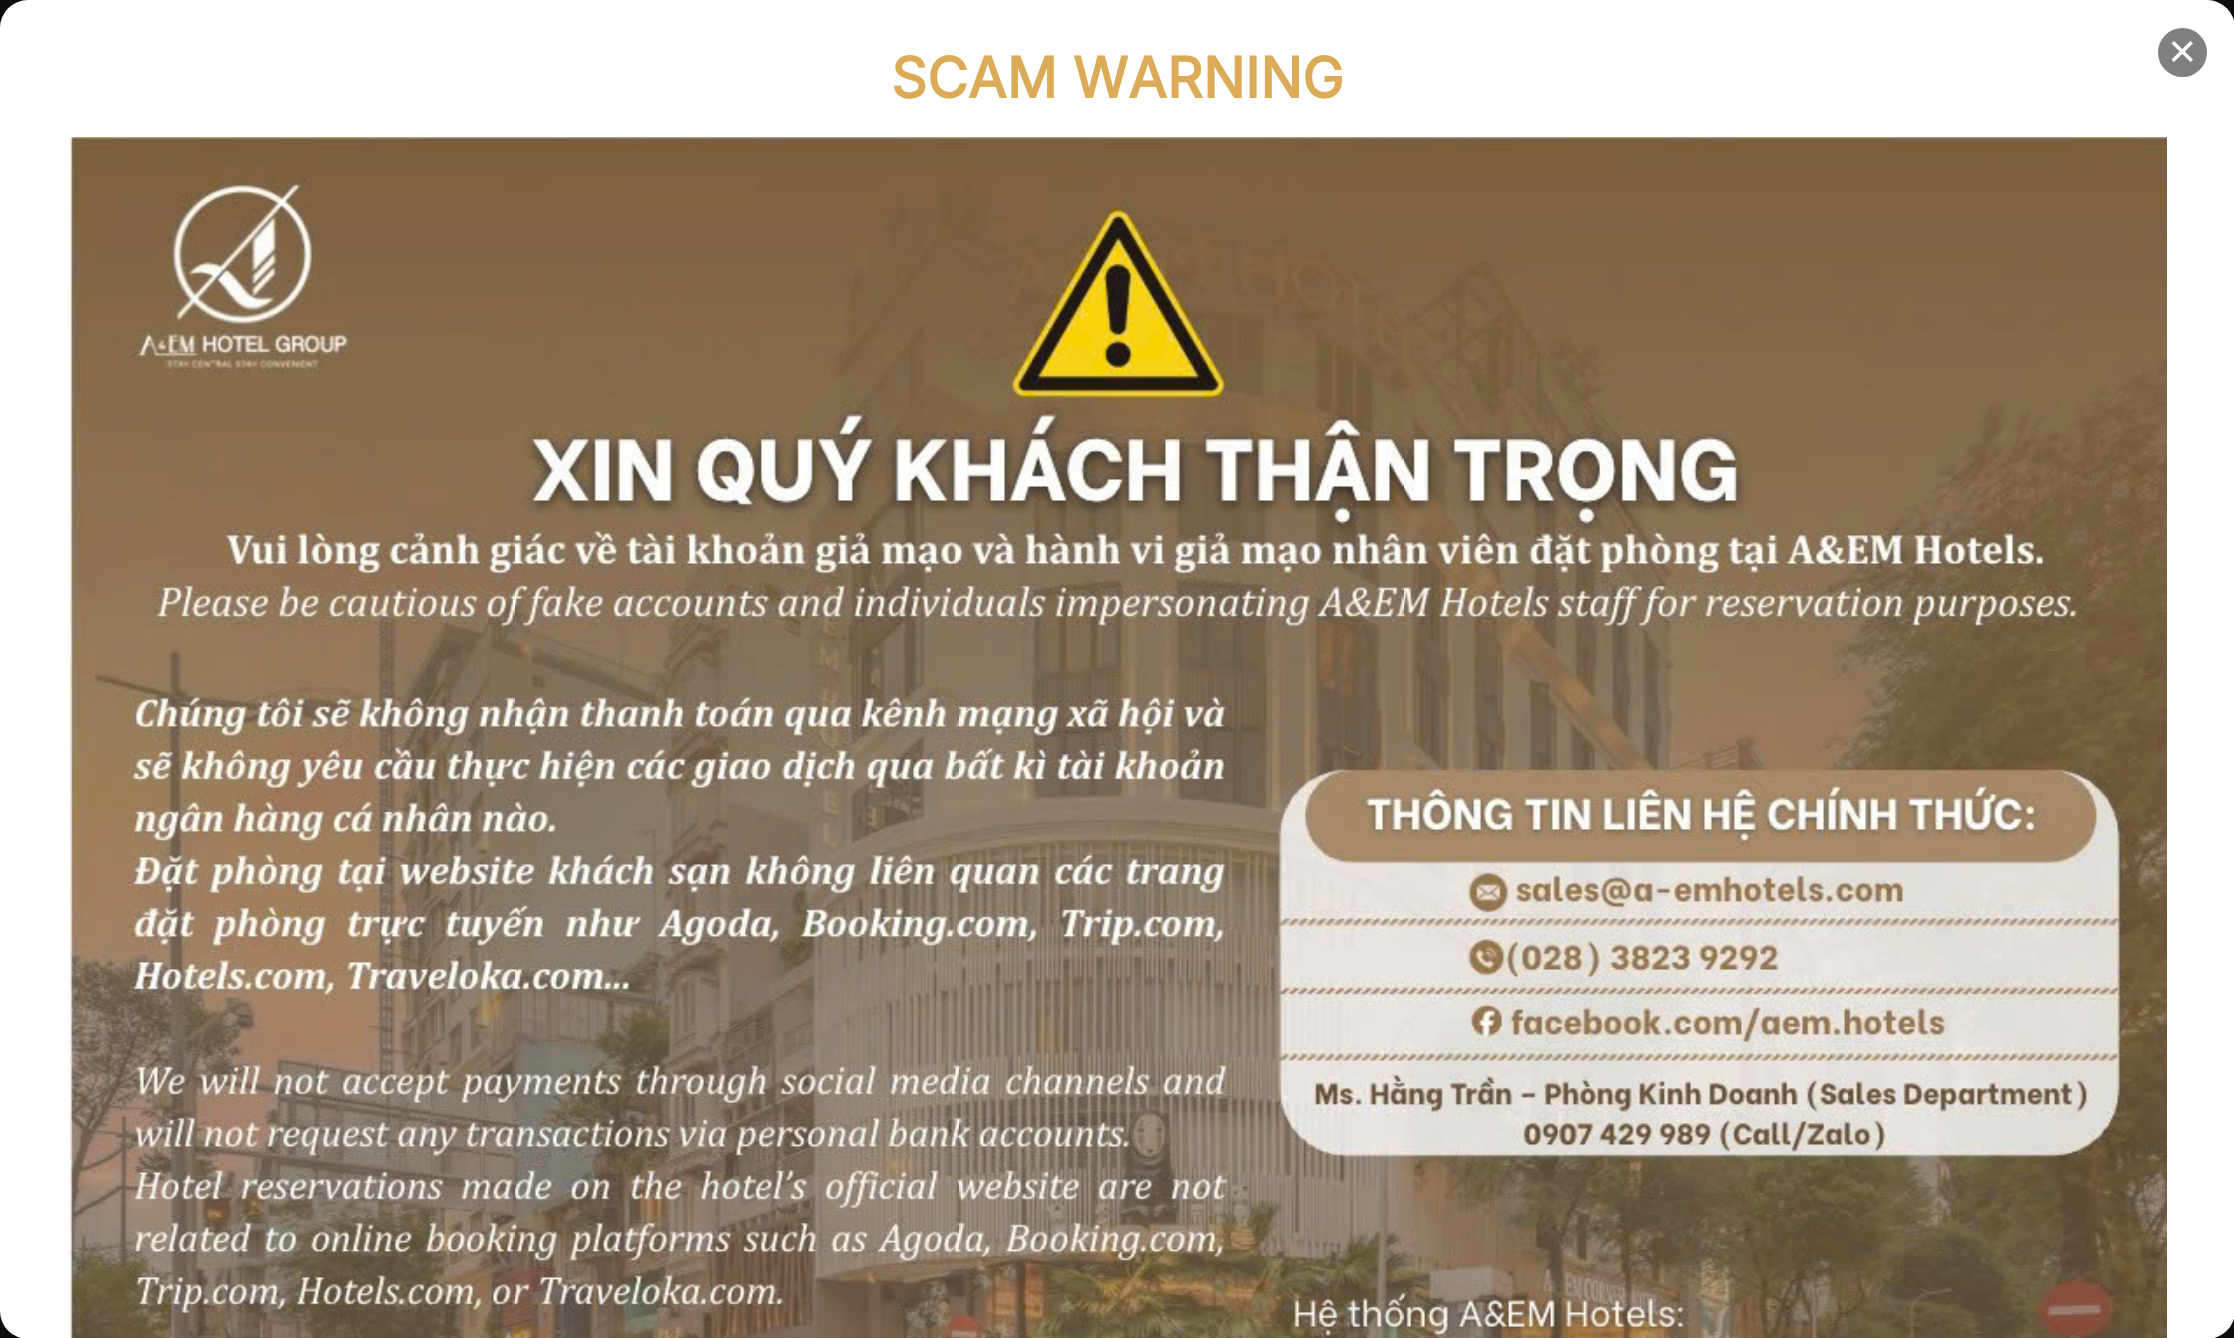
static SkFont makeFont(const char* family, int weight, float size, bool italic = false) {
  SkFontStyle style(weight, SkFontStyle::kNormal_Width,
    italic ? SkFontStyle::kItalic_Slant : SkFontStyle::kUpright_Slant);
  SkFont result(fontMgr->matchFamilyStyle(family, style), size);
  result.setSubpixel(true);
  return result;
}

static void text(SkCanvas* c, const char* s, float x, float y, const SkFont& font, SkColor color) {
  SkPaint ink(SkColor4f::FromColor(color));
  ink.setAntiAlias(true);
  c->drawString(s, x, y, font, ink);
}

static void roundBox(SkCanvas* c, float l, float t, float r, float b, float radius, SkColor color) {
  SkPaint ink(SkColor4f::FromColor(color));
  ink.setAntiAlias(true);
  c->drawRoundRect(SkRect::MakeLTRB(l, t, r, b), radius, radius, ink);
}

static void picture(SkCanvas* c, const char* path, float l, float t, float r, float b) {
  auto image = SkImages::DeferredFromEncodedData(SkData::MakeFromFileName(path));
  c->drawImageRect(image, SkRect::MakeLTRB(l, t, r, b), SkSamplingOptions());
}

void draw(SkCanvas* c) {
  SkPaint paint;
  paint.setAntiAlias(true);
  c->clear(0xff0e0e0e);
  roundBox(c, 0, 0, 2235, 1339, 28, 0xffffffff);
  SkFont face1 = makeFont("Inter", 700, 56);
  text(c, "SCAM WARNING", 891, 98, face1, 0xffdbab57);
  picture(c, "img_01.png", 69, 137, 2167, 1338);
  paint.setColor(0xff808080);
  c->drawCircle(2182.5f, 52.5f, 24.5f, paint);
  paint.setColor(0xffffffff);
  c->drawPath(SkPathBuilder().moveTo(2171.5f, 43.5f).lineTo(2174, 41).lineTo(2193, 59.5f).lineTo(2190.5f, 62).close().detach(), paint);
  c->drawPath(SkPathBuilder().moveTo(2190.5f, 41).lineTo(2193, 43.5f).lineTo(2174, 62).lineTo(2171.5f, 59.5f).close().detach(), paint);
}
